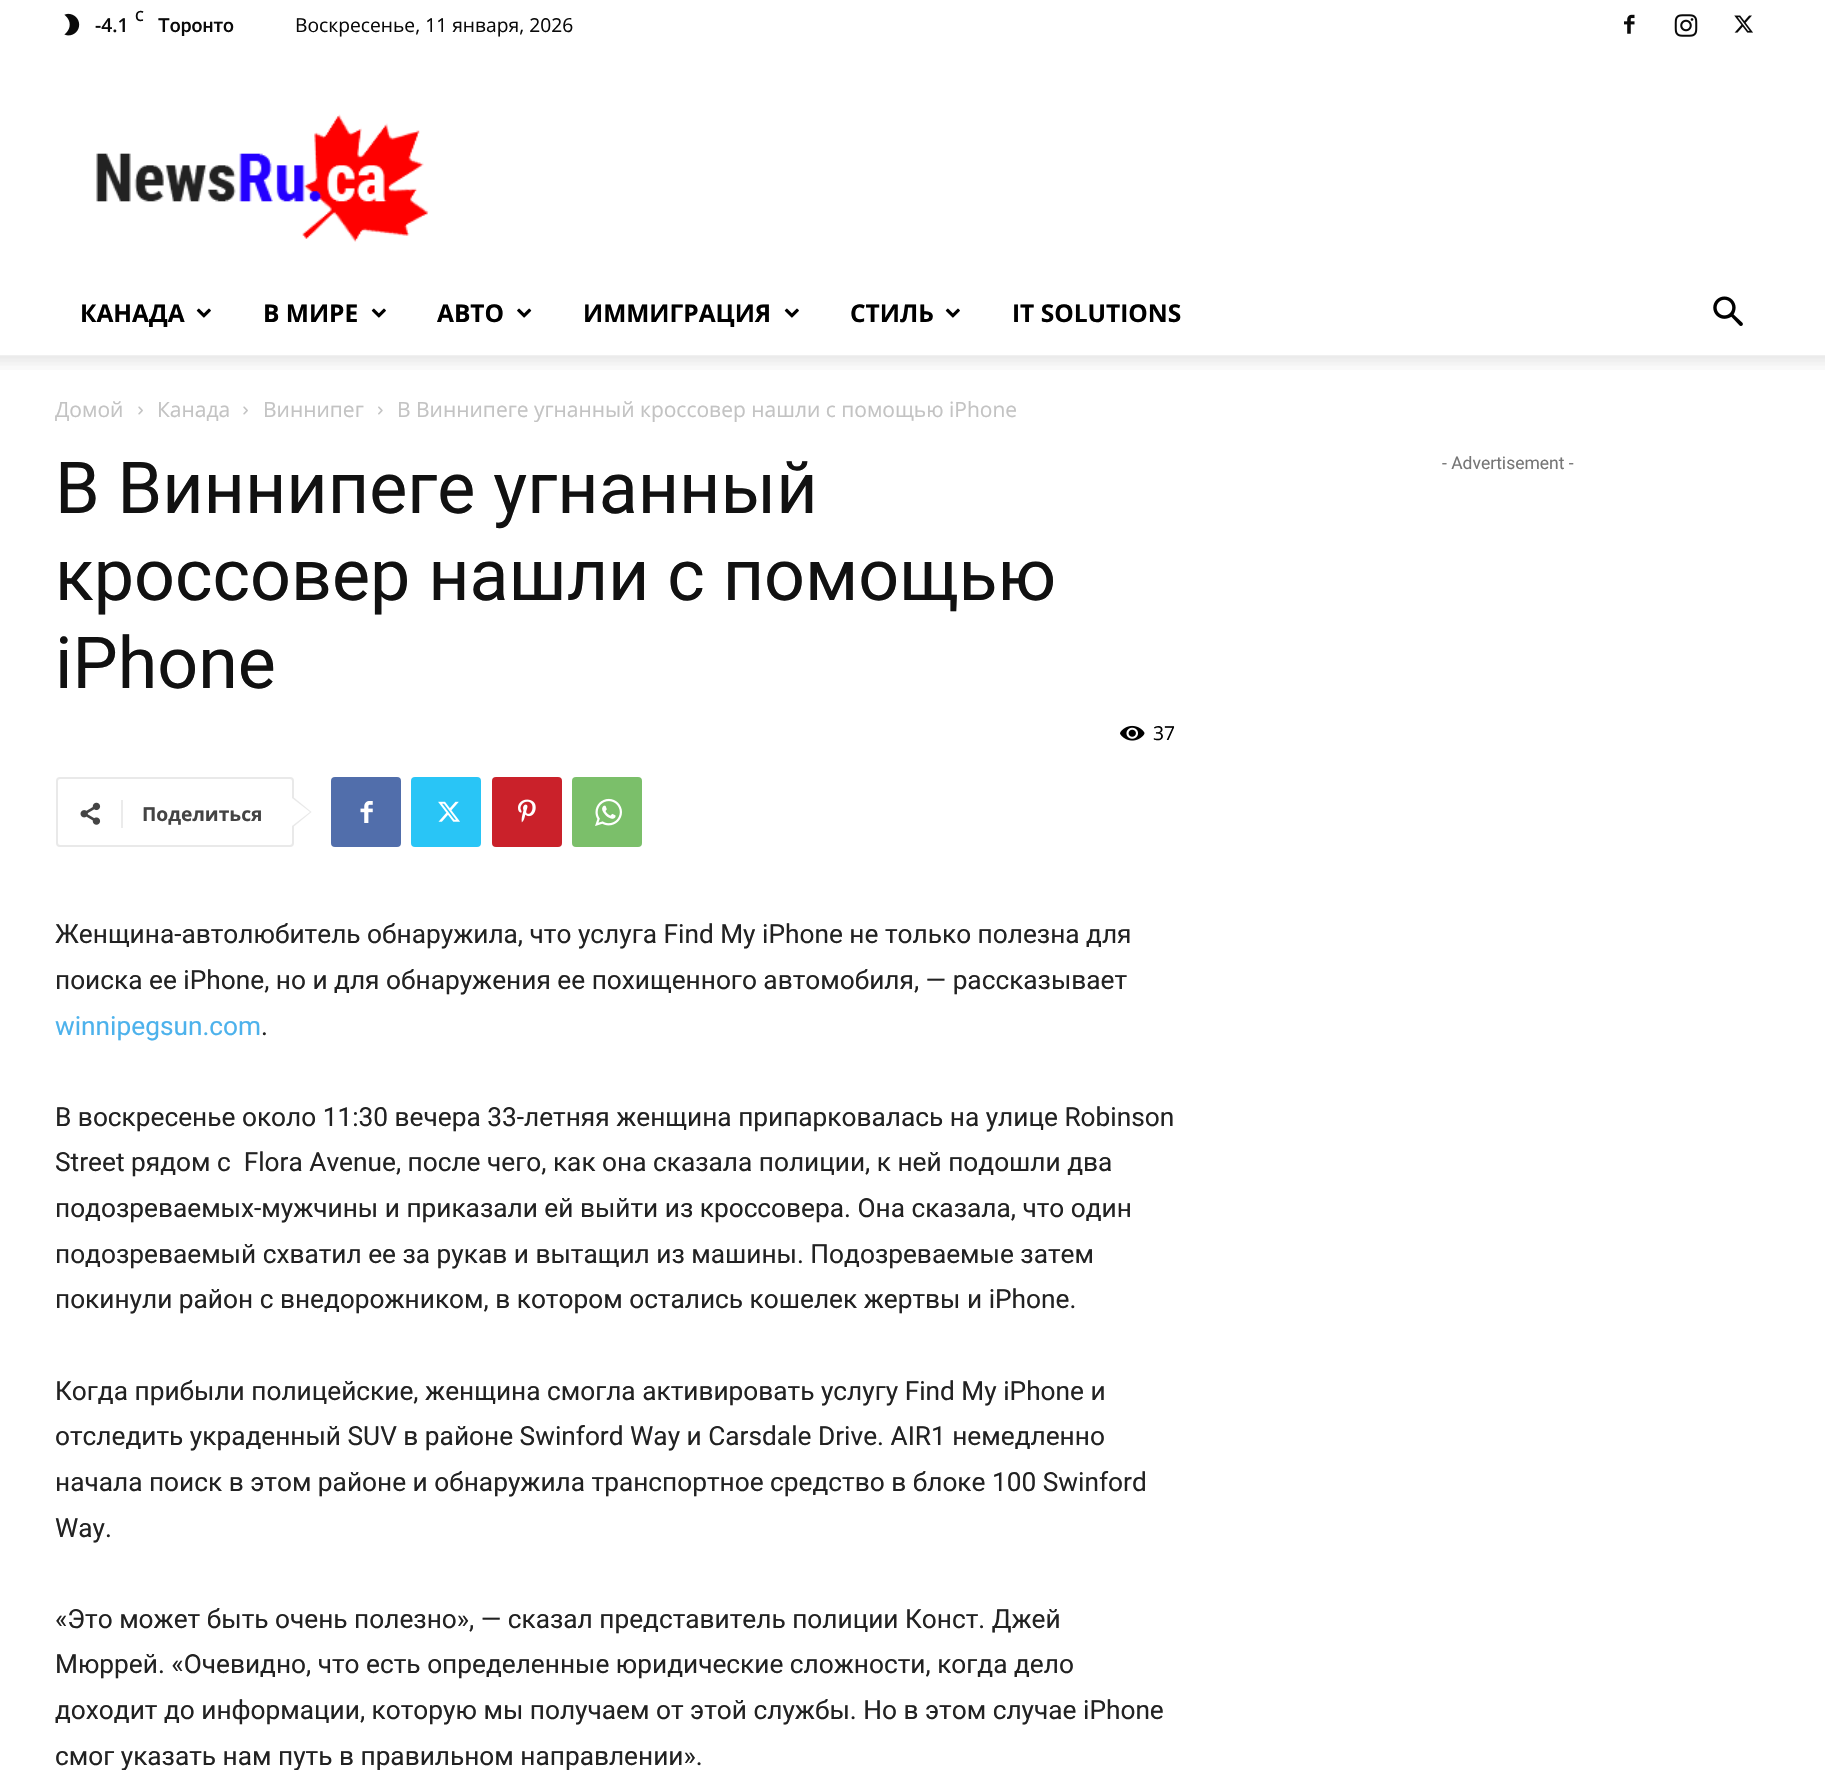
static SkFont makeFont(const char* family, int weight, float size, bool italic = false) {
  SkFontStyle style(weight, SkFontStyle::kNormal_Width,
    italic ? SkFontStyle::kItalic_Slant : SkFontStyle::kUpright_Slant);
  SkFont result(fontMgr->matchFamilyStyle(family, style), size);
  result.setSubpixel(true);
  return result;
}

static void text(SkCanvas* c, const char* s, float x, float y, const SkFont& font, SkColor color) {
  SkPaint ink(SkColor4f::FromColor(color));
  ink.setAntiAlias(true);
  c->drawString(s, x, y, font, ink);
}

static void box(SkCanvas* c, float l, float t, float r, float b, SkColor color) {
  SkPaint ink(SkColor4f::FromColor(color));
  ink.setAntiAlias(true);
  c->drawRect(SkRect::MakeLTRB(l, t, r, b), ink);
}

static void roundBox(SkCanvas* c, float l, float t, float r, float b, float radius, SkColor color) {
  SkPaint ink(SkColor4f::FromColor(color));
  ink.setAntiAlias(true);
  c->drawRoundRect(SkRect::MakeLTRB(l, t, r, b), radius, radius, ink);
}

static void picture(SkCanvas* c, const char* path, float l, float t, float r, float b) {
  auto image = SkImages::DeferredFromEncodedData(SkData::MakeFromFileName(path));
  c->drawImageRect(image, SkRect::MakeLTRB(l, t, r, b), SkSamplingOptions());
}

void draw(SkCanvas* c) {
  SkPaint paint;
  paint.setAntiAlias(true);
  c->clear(0xffffffff);
  picture(c, "img_01.png", 64, 13, 80, 36);
  SkFont face1 = makeFont("Open Sans", 600, 14);
  text(c, "C", 135, 21, face1, 0xff0a0a0a);
  SkFont face2 = makeFont("Open Sans", 600, 19.25f);
  text(c, "-4.1", 95, 32, face2, 0xff0a0a0a);
  SkFont face3 = makeFont("Roboto", 500, 19.25f);
  text(c, "Торонто", 158, 32, face3, 0xff0a0a0a);
  SkFont face4 = makeFont("Open Sans", 400, 19.25f);
  text(c, "Воскресенье, 11 января, 2026", 295, 32, face4, 0xff0a0a0a);
  picture(c, "img_02.png", 1624, 14, 1635, 34);
  picture(c, "img_03.png", 1674, 14, 1698, 37);
  picture(c, "img_04.png", 1734, 15, 1753, 33);
  picture(c, "img_05.png", 96, 114, 429, 242);
  SkFont face5 = makeFont("Open Sans", 700, 24.5f);
  text(c, "КАНАДА", 80, 322, face5, 0xff000000);
  picture(c, "img_06.png", 196, 308, 211, 318);
  text(c, "В МИРЕ", 263, 322, face5, 0xff000000);
  picture(c, "img_06.png", 371, 308, 386, 318);
  text(c, "АВТО", 437, 322, face5, 0xff000000);
  picture(c, "img_07.png", 517, 308, 532, 318);
  text(c, "ИММИГРАЦИЯ", 583, 322, face5, 0xff000000);
  picture(c, "img_06.png", 784, 308, 799, 318);
  text(c, "СТИЛЬ", 850, 322, face5, 0xff000000);
  picture(c, "img_06.png", 945, 308, 960, 318);
  text(c, "IT SOLUTIONS", 1012, 322, face5, 0xff000000);
  picture(c, "img_08.png", 1713, 296, 1743, 326);
  picture(c, "img_09.png", 0, 355, 1825, 370);
  SkFont face6 = makeFont("Open Sans", 400, 21);
  text(c, "Домой", 55, 417, face6, 0xffc3c3c3);
  picture(c, "img_10.png", 138, 406, 143, 415);
  text(c, "Канада", 157, 417, face6, 0xffc3c3c3);
  picture(c, "img_10.png", 243, 406, 248, 415);
  text(c, "Виннипег", 263, 417, face6, 0xffc3c3c3);
  picture(c, "img_11.png", 378, 406, 383, 415);
  text(c, "В Виннипеге угнанный кроссовер нашли с помощью iPhone", 397, 417, face6, 0xffc3c3c3);
  SkFont face7 = makeFont("Roboto", 400, 71.75f);
  text(c, "В Виннипеге угнанный", 55, 513, face7, 0xff111111);
  text(c, "кроссовер нашли с помощью", 55, 600, face7, 0xff111111);
  text(c, "iPhone", 55, 688, face7, 0xff111111);
  picture(c, "img_12.png", 1120, 725, 1145, 741);
  text(c, "37", 1153, 740, face4, 0xff000000);
  paint.setStyle(SkPaint::kStroke_Style);
  paint.setStrokeWidth(2);
  paint.setColor(0xffe9e9e9);
  c->drawRoundRect(SkRect::MakeLTRB(57, 778, 293, 846), 3, 3, paint);
  paint.setStyle(SkPaint::kFill_Style);
  c->drawPath(SkPathBuilder().moveTo(292, 828).lineTo(292, 796).lineTo(311.5f, 812).close().detach(), paint);
  picture(c, "img_13.png", 80, 802, 101, 825);
  box(c, 121, 800, 123, 828, 0xffebebeb);
  SkFont face8 = makeFont("Open Sans", 700, 19.25f);
  text(c, "Поделиться", 142, 821, face8, 0xff444444);
  paint.setColor(0xffffffff);
  c->drawPath(SkPathBuilder().moveTo(292, 826).lineTo(292, 798).lineTo(310, 812).close().detach(), paint);
  roundBox(c, 331, 777, 401, 847, 4, 0xff516eab);
  picture(c, "img_14.png", 360, 801, 373, 823);
  roundBox(c, 411, 777, 481, 847, 4, 0xff29c5f6);
  picture(c, "img_15.png", 438, 801, 460, 822);
  roundBox(c, 492, 777, 562, 847, 4, 0xffca212a);
  picture(c, "img_16.png", 518, 799, 536, 823);
  roundBox(c, 572, 777, 642, 847, 4, 0xff7bbf6a);
  picture(c, "img_17.png", 595, 798, 622, 826);
  SkFont face9 = makeFont("Roboto", 400, 26.25f);
  text(c, "Женщина-автолюбитель обнаружила, что услуга Find My iPhone не только полезна для", 55, 943, face9, 0xff222222);
  text(c, "поиска ее iPhone, но и для обнаружения ее похищенного автомобиля, — рассказывает", 55, 989, face9, 0xff222222);
  text(c, "winnipegsun.com", 55, 1035, face9, 0xff4db2ec);
  text(c, ".", 261, 1035, face9, 0xff222222);
  text(c, "В воскресенье около 11:30 вечера 33-летняя женщина припарковалась на улице Robinson", 55, 1126, face9, 0xff222222);
  text(c, "Street рядом с  Flora Avenue, после чего, как она сказала полиции, к ней подошли два", 55, 1171, face9, 0xff222222);
  text(c, "подозреваемых-мужчины и приказали ей выйти из кроссовера. Она сказала, что один", 55, 1217, face9, 0xff222222);
  text(c, "подозреваемый схватил ее за рукав и вытащил из машины. Подозреваемые затем", 55, 1263, face9, 0xff222222);
  text(c, "покинули район с внедорожником, в котором остались кошелек жертвы и iPhone.", 55, 1308, face9, 0xff222222);
  text(c, "Когда прибыли полицейские, женщина смогла активировать услугу Find My iPhone и", 55, 1400, face9, 0xff222222);
  text(c, "отследить украденный SUV в районе Swinford Way и Carsdale Drive. AIR1 немедленно", 55, 1445, face9, 0xff222222);
  text(c, "начала поиск в этом районе и обнаружила транспортное средство в блоке 100 Swinford", 55, 1491, face9, 0xff222222);
  text(c, "Way.", 55, 1537, face9, 0xff222222);
  text(c, "«Это может быть очень полезно», — сказал представитель полиции Конст. Джей", 55, 1628, face9, 0xff222222);
  text(c, "Мюррей. «Очевидно, что есть определенные юридические сложности, когда дело", 55, 1673, face9, 0xff222222);
  text(c, "доходит до информации, которую мы получаем от этой службы. Но в этом случае iPhone", 55, 1719, face9, 0xff222222);
  text(c, "смог указать нам путь в правильном направлении».", 55, 1765, face9, 0xff222222);
  SkFont face10 = makeFont("Roboto", 400, 17.5f);
  text(c, "- Advertisement -", 1442, 469, face10, 0xff767676);
}
